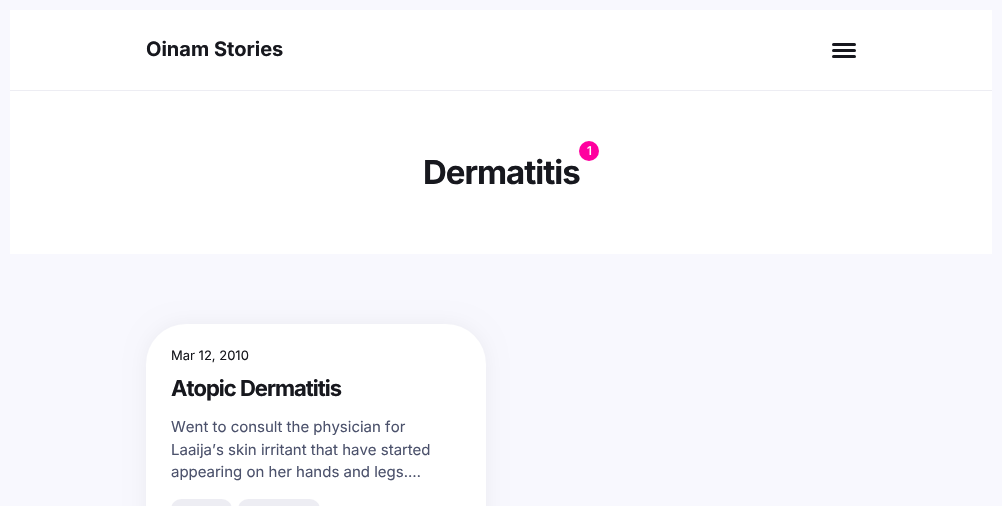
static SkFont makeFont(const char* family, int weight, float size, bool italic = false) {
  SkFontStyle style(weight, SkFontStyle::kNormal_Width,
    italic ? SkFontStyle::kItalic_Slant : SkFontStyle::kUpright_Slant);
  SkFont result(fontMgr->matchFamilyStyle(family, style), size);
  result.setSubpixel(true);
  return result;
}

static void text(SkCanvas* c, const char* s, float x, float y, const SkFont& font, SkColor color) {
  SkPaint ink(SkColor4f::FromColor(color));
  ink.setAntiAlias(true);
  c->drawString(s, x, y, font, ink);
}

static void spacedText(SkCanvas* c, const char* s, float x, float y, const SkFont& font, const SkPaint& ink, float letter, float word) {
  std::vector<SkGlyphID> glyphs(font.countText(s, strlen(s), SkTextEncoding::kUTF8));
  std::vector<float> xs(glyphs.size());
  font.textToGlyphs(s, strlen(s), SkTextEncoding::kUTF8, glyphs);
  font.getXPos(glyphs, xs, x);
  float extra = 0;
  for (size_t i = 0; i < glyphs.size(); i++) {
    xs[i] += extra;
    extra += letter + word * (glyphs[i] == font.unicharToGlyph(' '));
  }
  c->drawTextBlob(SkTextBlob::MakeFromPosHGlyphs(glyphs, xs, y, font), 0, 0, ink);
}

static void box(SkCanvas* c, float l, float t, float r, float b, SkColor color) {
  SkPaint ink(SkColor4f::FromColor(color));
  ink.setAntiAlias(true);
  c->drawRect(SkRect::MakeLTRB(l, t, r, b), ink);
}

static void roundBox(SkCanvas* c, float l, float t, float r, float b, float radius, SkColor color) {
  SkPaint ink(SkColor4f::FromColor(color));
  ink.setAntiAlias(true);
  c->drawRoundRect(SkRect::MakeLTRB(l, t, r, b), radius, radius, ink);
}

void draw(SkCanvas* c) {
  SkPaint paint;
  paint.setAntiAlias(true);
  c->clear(0xfff8f8fe);
  box(c, 10, 10, 992, 90, 0xffffffff);
  box(c, 10, 90, 992, 91, 0xffededf3);
  SkFont face1 = makeFont("Inter", 700, 20);
  text(c, "Oinam Stories", 146, 56, face1, 0xff17181e);
  roundBox(c, 832, 49, 856, 52, 1.5f, 0xff17181e);
  roundBox(c, 832, 43, 856, 46, 1.5f, 0xff17181e);
  roundBox(c, 832, 55, 856, 58, 1.5f, 0xff17181e);
  box(c, 10, 91, 992, 254, 0xffffffff);
  SkFont face2 = makeFont("Inter", 700, 33);
  paint.setColor(0xff17181e);
  spacedText(c, "Dermatitis", 423, 184, face2, paint, -1, 0);
  paint.setColor(0xffff009f);
  c->drawCircle(589, 151, 10, paint);
  SkFont face3 = makeFont("Inter", 500, 12);
  paint.setColor(0xffffffff);
  spacedText(c, "1", 587, 155, face3, paint, -1, 0);
  paint.setColor(0x0d000000);
  paint.setMaskFilter(SkMaskFilter::MakeBlur(kNormal_SkBlurStyle, 10));
  c->drawRoundRect(SkRect::MakeLTRB(146, 324, 486, 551), 40, 40, paint);
  paint.setMaskFilter(nullptr);
  roundBox(c, 146, 324, 486, 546, 40, 0xffffffff);
  SkFont face4 = makeFont("Inter", 400, 13);
  text(c, "Mar 12, 2010", 171, 360, face4, 0xff17181e);
  SkFont face5 = makeFont("Inter", 700, 22);
  paint.setColor(0xff17181e);
  spacedText(c, "Atopic Dermatitis", 171, 396, face5, paint, -1, 0);
  SkFont face6 = makeFont("Inter", 400, 15);
  text(c, "Went to consult the physician for", 171, 432, face6, 0xff4c526c);
  text(c, "Laaija’s skin irritant that have started", 171, 455, face6, 0xff4c526c);
  text(c, "appearing on her hands and legs.…", 171, 477, face6, 0xff4c526c);
  roundBox(c, 171, 499, 232, 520, 13.5f, 0xffededf3);
  roundBox(c, 238, 499, 320, 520, 13.5f, 0xffededf3);
}
